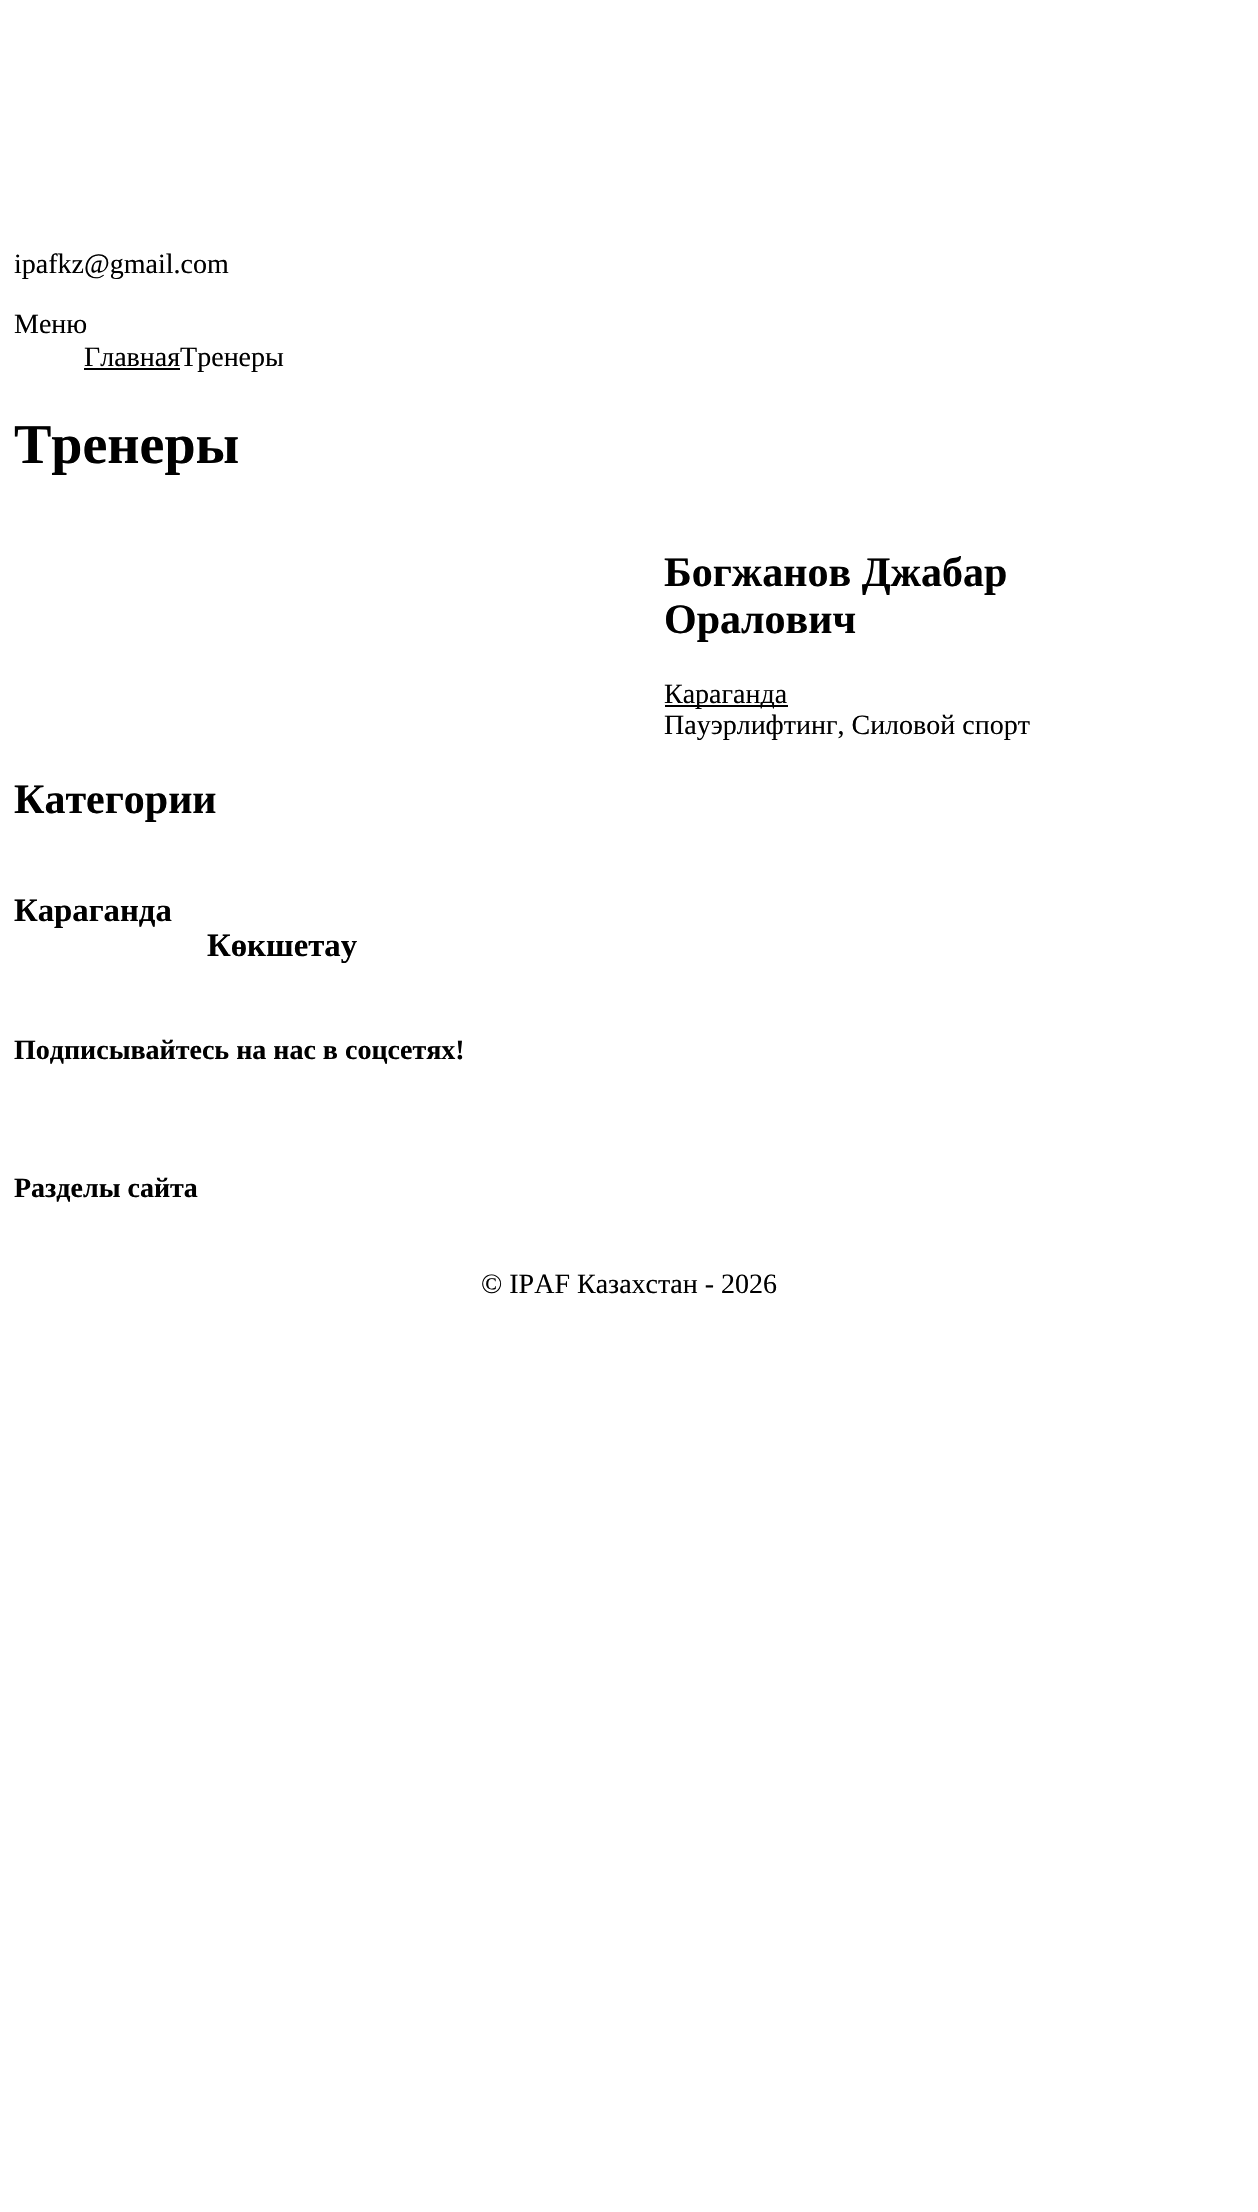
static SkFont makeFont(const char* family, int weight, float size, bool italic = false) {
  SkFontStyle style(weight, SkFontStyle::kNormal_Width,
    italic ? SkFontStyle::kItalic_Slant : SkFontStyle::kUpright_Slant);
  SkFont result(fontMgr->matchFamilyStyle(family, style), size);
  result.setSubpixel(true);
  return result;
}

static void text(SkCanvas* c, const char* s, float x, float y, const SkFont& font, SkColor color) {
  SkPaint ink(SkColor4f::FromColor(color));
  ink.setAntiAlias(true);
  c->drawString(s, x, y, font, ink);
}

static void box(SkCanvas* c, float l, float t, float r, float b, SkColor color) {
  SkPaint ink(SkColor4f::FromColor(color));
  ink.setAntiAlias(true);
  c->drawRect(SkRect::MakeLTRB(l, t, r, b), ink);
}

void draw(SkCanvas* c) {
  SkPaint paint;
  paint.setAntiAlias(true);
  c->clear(0xffffffff);
  SkFont face1 = makeFont("Liberation Serif", 400, 28);
  text(c, "ipafkz@gmail.com", 14, 273, face1, 0xff000000);
  text(c, "Меню", 14, 333, face1, 0xff000000);
  box(c, 84, 368, 180, 370, 0xff000000);
  text(c, "ГлавнаяТренеры", 84, 366, face1, 0xff000000);
  SkFont face2 = makeFont("Liberation Serif", 700, 56);
  text(c, "Тренеры", 14, 463, face2, 0xff000000);
  SkFont face3 = makeFont("Liberation Serif", 700, 42);
  text(c, "Богжанов Джабар", 664, 586, face3, 0xff000000);
  text(c, "Оралович", 664, 633, face3, 0xff000000);
  box(c, 665, 705, 788, 707, 0xff000000);
  text(c, "Караганда", 664, 703, face1, 0xff000000);
  text(c, "Пауэрлифтинг, Силовой спорт", 664, 734, face1, 0xff000000);
  text(c, "Категории", 14, 813, face3, 0xff000000);
  SkFont face4 = makeFont("Liberation Serif", 700, 32.75f);
  text(c, "Караганда", 14, 921, face4, 0xff000000);
  text(c, "Көкшетау", 207, 956, face4, 0xff000000);
  SkFont face5 = makeFont("Liberation Serif", 700, 28);
  text(c, "Подписывайтесь на нас в соцсетях!", 14, 1059, face5, 0xff000000);
  text(c, "Разделы сайта", 14, 1197, face5, 0xff000000);
  text(c, "© IPAF Казахстан - 2026", 481, 1293, face1, 0xff000000);
}
